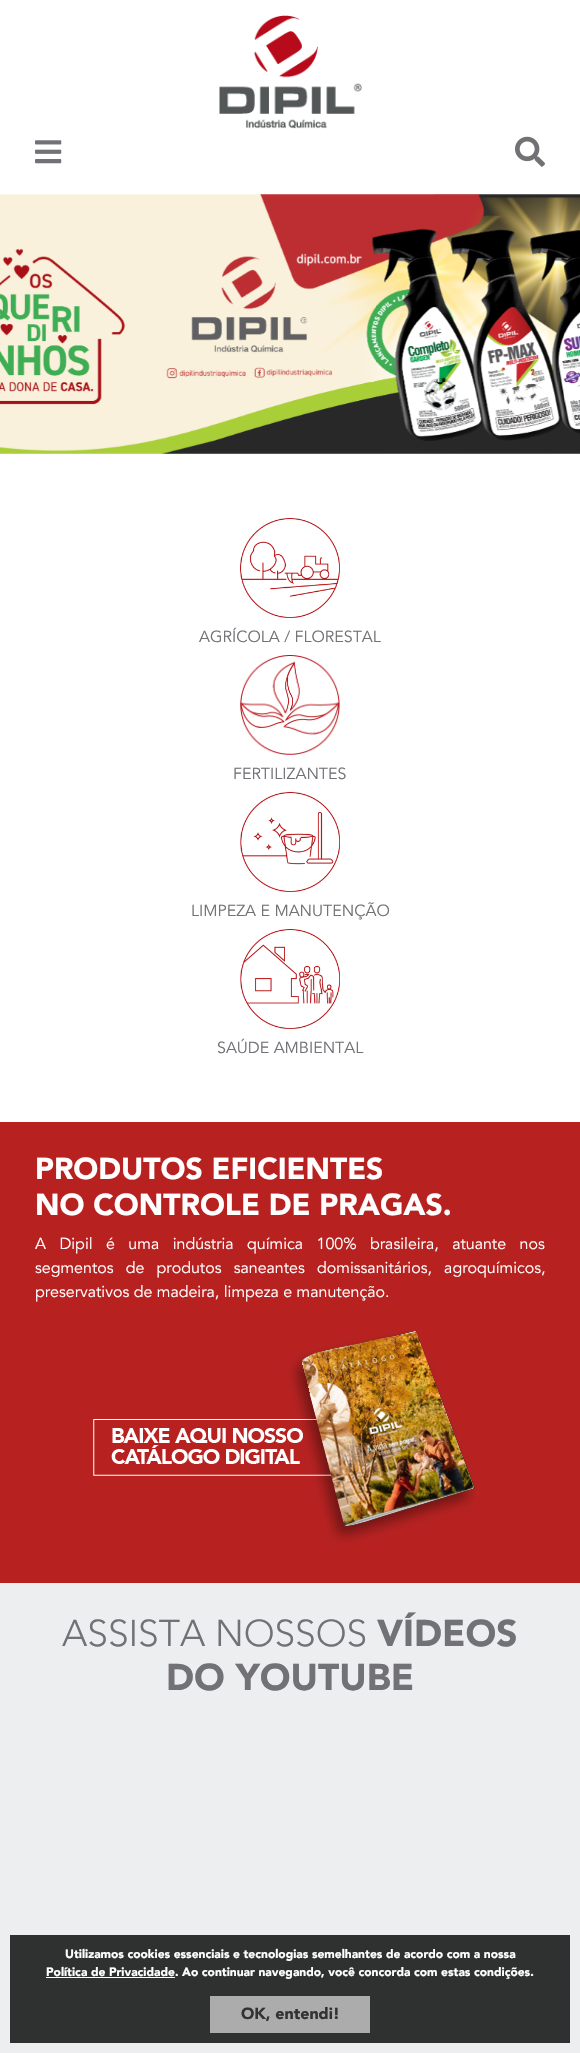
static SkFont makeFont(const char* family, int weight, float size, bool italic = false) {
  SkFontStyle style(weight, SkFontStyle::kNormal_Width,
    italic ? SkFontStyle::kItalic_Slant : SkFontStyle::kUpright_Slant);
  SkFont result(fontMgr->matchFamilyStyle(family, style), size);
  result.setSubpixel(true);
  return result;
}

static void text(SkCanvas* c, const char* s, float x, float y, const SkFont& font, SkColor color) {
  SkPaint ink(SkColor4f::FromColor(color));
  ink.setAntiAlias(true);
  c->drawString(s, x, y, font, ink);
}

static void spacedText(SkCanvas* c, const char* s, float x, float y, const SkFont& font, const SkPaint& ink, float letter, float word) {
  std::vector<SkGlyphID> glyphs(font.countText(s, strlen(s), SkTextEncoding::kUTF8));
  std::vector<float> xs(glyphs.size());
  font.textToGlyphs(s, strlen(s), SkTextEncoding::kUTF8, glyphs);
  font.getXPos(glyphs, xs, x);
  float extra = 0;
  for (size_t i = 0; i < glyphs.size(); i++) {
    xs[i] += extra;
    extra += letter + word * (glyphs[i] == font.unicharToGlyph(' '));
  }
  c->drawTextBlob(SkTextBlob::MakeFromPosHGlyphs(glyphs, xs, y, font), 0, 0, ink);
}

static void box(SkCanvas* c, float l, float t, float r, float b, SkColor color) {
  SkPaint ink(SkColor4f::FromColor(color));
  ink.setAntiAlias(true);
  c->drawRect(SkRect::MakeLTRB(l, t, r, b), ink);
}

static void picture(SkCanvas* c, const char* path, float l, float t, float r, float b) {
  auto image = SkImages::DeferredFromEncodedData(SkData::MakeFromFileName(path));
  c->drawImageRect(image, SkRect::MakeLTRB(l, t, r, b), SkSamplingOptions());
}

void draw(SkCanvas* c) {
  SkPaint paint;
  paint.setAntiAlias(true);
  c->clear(0xffffffff);
  picture(c, "img_01.png", 219, 15, 362, 129);
  picture(c, "img_02.png", 35, 140, 62, 164);
  picture(c, "img_03.png", 515, 136, 545, 167);
  picture(c, "img_04.png", 0, 194, 580, 454);
  picture(c, "img_05.png", 240, 518, 340, 618);
  SkFont face1 = makeFont("Avenir", 400, 16);
  text(c, "AGRÍCOLA / FLORESTAL", 199, 642, face1, 0xff727176);
  picture(c, "img_06.png", 240, 655, 340, 755);
  text(c, "FERTILIZANTES", 233, 779, face1, 0xff727176);
  picture(c, "img_07.png", 240, 792, 340, 892);
  text(c, "LIMPEZA E MANUTENÇÃO", 191, 916, face1, 0xff727176);
  picture(c, "img_08.png", 240, 929, 340, 1029);
  text(c, "SAÚDE AMBIENTAL", 217, 1053, face1, 0xff727176);
  box(c, 0, 1122, 580, 1583, 0xffb72221);
  SkFont face2 = makeFont("Avenir", 900, 30);
  text(c, "PRODUTOS EFICIENTES", 35, 1179, face2, 0xffffffff);
  text(c, "NO CONTROLE DE PRAGAS.", 35, 1215, face2, 0xffffffff);
  paint.setColor(0xffffffff);
  spacedText(c, "A Dipil é uma indústria química 100% brasileira, atuante nos", 35, 1249, face1, paint, 0, 9);
  spacedText(c, "segmentos de produtos saneantes domissanitários, agroquímicos,", 35, 1273, face1, paint, 0, 7.75f);
  text(c, "preservativos de madeira, limpeza e manutenção.", 35, 1297, face1, 0xffffffff);
  picture(c, "img_09.png", 93, 1330, 476, 1543);
  box(c, 0, 1583, 580, 2053, 0xffedeef0);
  SkFont face3 = makeFont("Avenir", 300, 37);
  text(c, "ASSISTA NOSSOS", 62, 1646, face3, 0xff727176);
  SkFont face4 = makeFont("Avenir", 900, 37);
  text(c, "VÍDEOS", 377, 1646, face4, 0xff727176);
  text(c, "DO YOUTUBE", 166, 1690, face4, 0xff727176);
  box(c, 10, 1935, 570, 2043, 0xff2f3030);
  SkFont face5 = makeFont("Avenir", 900, 12);
  text(c, "Utilizamos cookies essenciais e tecnologias semelhantes de acordo com a nossa", 65, 1958, face5, 0xffffffff);
  box(c, 46, 1977, 175, 1978, 0xffffffff);
  text(c, "Política de Privacidade. Ao continuar navegando, você concorda com estas condições.", 46, 1976, face5, 0xffffffff);
  box(c, 210, 1996, 370, 2033, 0xffacacac);
  SkFont face6 = makeFont("Avenir", 900, 16);
  text(c, "OK, entendi!", 241, 2019, face6, 0xff313232);
}
